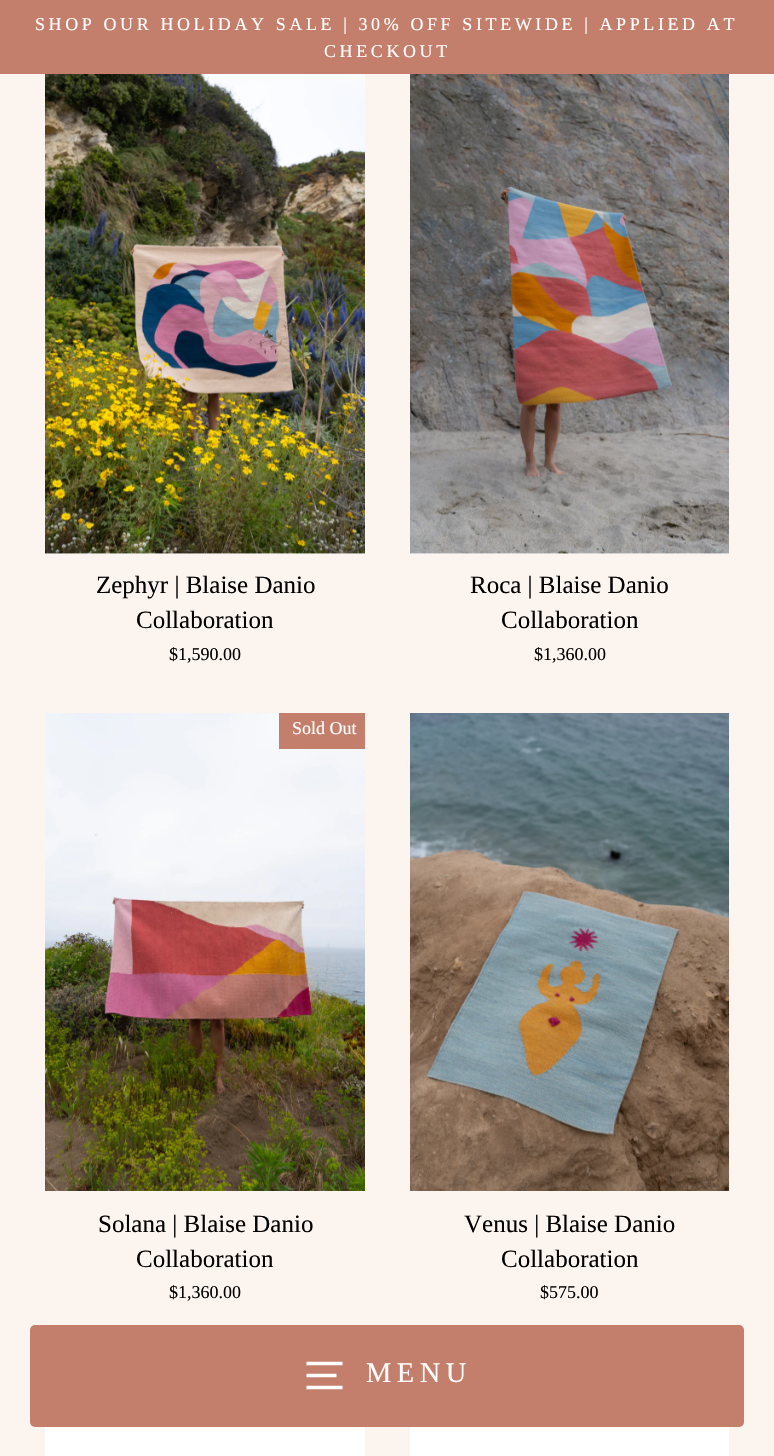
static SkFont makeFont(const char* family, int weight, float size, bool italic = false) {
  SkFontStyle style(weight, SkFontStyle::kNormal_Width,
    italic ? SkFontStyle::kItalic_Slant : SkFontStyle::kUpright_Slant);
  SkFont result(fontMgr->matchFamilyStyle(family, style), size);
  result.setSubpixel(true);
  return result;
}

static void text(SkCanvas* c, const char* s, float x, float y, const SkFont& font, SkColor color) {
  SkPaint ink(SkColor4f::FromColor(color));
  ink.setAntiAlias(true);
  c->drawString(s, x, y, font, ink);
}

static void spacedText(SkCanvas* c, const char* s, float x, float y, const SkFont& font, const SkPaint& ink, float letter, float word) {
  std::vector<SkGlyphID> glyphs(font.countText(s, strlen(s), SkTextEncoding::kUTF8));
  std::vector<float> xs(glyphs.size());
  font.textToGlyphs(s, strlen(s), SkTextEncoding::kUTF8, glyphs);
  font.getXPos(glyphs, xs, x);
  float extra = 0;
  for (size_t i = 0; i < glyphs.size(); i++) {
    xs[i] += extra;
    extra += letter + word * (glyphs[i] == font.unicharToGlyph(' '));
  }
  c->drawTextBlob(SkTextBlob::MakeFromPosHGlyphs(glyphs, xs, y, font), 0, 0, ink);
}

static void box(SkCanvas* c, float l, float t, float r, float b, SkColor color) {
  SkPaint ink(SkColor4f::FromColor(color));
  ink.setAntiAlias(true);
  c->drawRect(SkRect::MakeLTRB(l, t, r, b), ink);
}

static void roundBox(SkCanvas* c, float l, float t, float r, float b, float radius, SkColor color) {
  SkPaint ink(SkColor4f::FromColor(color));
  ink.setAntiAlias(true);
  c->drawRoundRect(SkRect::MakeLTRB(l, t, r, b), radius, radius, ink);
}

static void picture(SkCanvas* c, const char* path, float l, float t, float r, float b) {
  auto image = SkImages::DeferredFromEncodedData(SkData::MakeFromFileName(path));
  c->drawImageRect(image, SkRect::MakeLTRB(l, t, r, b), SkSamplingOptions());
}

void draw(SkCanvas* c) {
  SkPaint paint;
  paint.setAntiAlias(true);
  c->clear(0xfffcf5ef);
  box(c, 0, 0, 774, 74, 0xffc37f6c);
  SkFont face1 = makeFont("Liberation Serif", 400, 18);
  paint.setColor(0xffffffff);
  spacedText(c, "SHOP OUR HOLIDAY SALE | 30% OFF SITEWIDE | APPLIED AT", 35, 30, face1, paint, 3.6f, 0);
  spacedText(c, "CHECKOUT", 324, 57, face1, paint, 3.6f, 0);
  roundBox(c, 30, 1325, 744, 1427, 5, 0xffc37f6c);
  paint.setStyle(SkPaint::kStroke_Style);
  paint.setStrokeWidth(3.5f);
  c->drawPath(SkPathBuilder().moveTo(306.5f, 1363.5f).lineTo(342.5f, 1363.5f).moveTo(306.5f, 1375.5f).lineTo(336.5f, 1375.5f).moveTo(306.5f, 1387.5f).lineTo(342.5f, 1387.5f).detach(), paint);
  SkFont face2 = makeFont("Liberation Serif", 400, 28.5f);
  paint.setStyle(SkPaint::kFill_Style);
  spacedText(c, "MENU", 366, 1382, face2, paint, 5.5f, 0);
  {
    const SkColor colors[] = {0xffffffff, 0xfff7f7f7, 0xffffffff};
    const float stops[] = {0.4f, 0.63f, 0.79f};
    const SkPoint ends[] = {{23, 197}, {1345, 430}};
    paint.setShader(SkGradientShader::MakeLinear(ends, colors, stops, 3, SkTileMode::kClamp));
    paint.setAlpha(255);
  }
  c->drawRect(SkRect::MakeLTRB(45, 553, 365, 554), paint);
  picture(c, "img_01.png", 45, 74, 365, 554);
  SkFont face3 = makeFont("Liberation Serif", 400, 25);
  text(c, "Zephyr | Blaise Danio", 96, 593, face3, 0xff000000);
  text(c, "Collaboration", 136, 628, face3, 0xff000000);
  text(c, "$1,590.00", 169, 660, face1, 0xff000000);
  {
    const SkColor colors[] = {0xffffffff, 0xfff7f7f7, 0xffffffff};
    const float stops[] = {0.4f, 0.63f, 0.79f};
    const SkPoint ends[] = {{388, 197}, {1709, 430}};
    paint.setShader(SkGradientShader::MakeLinear(ends, colors, stops, 3, SkTileMode::kClamp));
    paint.setAlpha(255);
  }
  c->drawRect(SkRect::MakeLTRB(410, 553, 729, 554), paint);
  picture(c, "img_02.png", 410, 74, 729, 554);
  text(c, "Roca | Blaise Danio", 470, 593, face3, 0xff000000);
  text(c, "Collaboration", 501, 628, face3, 0xff000000);
  text(c, "$1,360.00", 534, 660, face1, 0xff000000);
  picture(c, "img_03.png", 45, 713, 365, 1191);
  box(c, 279, 713, 365, 749, 0xffc37f6c);
  text(c, "Sold Out", 292, 734, face1, 0xffffffff);
  text(c, "Solana | Blaise Danio", 98, 1232, face3, 0xff000000);
  text(c, "Collaboration", 136, 1267, face3, 0xff000000);
  text(c, "$1,360.00", 169, 1298, face1, 0xff000000);
  picture(c, "img_04.png", 410, 713, 729, 1191);
  text(c, "Venus | Blaise Danio", 464, 1232, face3, 0xff000000);
  text(c, "Collaboration", 501, 1267, face3, 0xff000000);
  text(c, "$575.00", 540, 1298, face1, 0xff000000);
  {
    const SkColor colors[] = {0xffffffff, 0xfff7f7f7, 0xffffffff};
    const float stops[] = {0.4f, 0.63f, 0.79f};
    const SkPoint ends[] = {{28, 1448}, {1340, 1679}};
    paint.setShader(SkGradientShader::MakeLinear(ends, colors, stops, 3, SkTileMode::kClamp));
    paint.setAlpha(255);
  }
  c->drawRect(SkRect::MakeLTRB(45, 1427, 365, 1456), paint);
  {
    const SkColor colors[] = {0xffffffff, 0xfff7f7f7, 0xffffffff};
    const float stops[] = {0.4f, 0.63f, 0.79f};
    const SkPoint ends[] = {{411, 1344}, {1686, 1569}};
    paint.setShader(SkGradientShader::MakeLinear(ends, colors, stops, 3, SkTileMode::kClamp));
    paint.setAlpha(255);
  }
  c->drawRect(SkRect::MakeLTRB(410, 1427, 729, 1456), paint);
}
